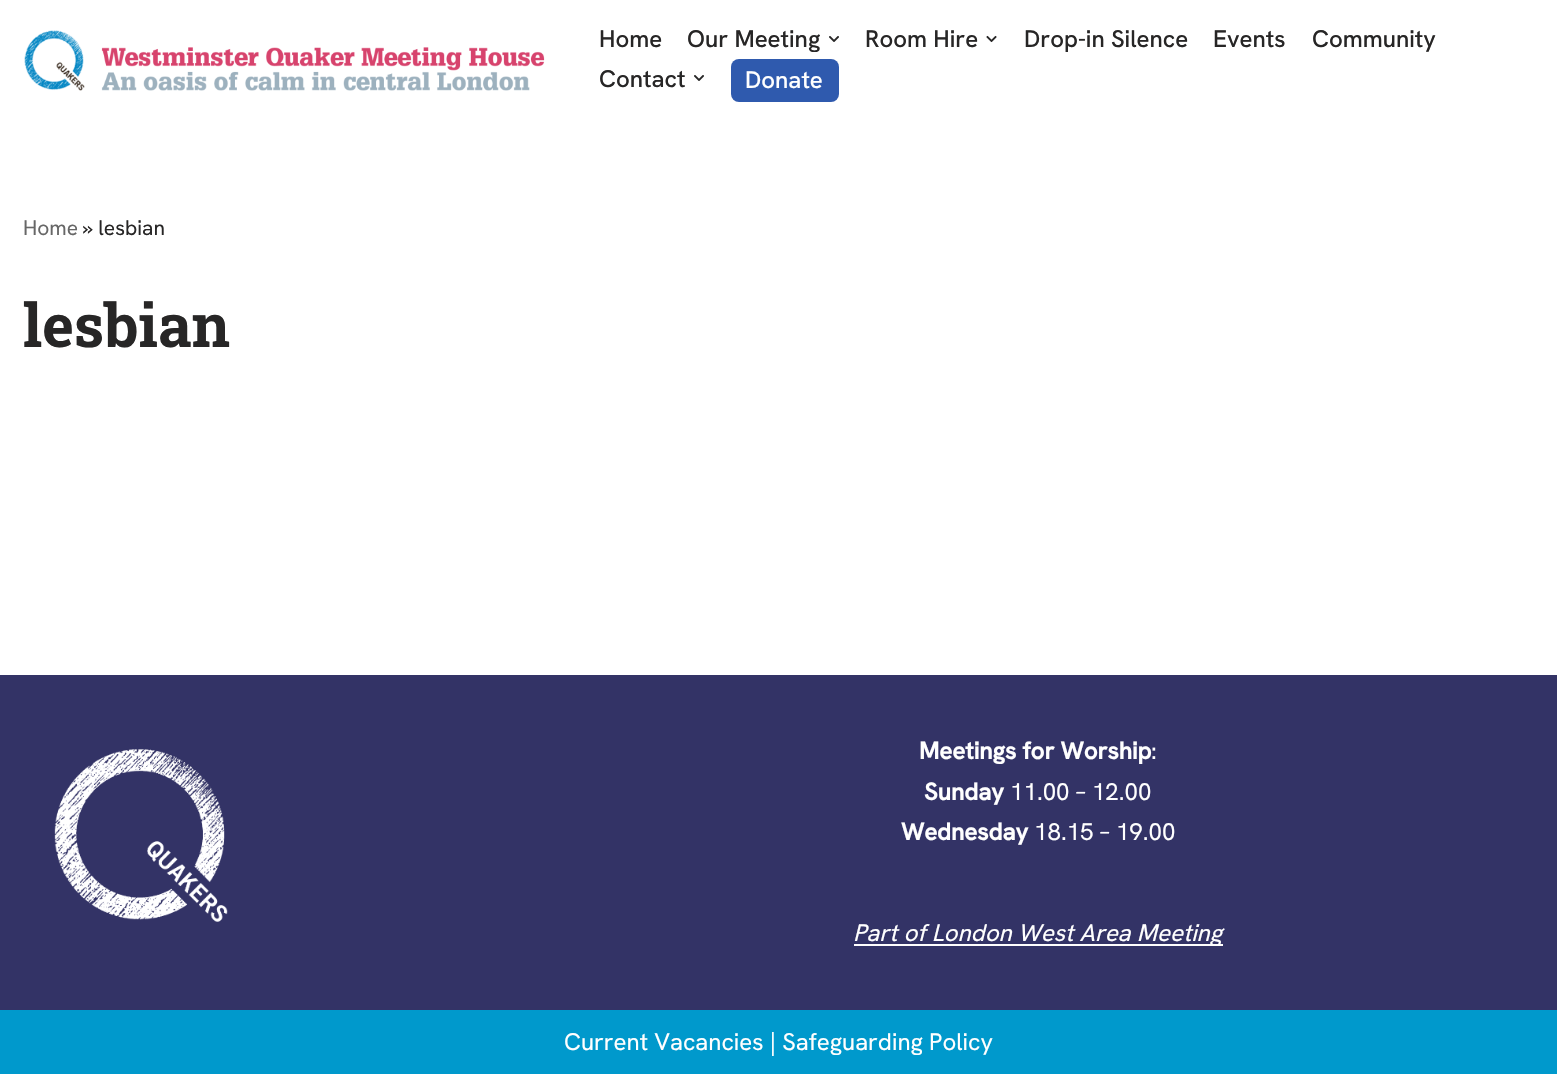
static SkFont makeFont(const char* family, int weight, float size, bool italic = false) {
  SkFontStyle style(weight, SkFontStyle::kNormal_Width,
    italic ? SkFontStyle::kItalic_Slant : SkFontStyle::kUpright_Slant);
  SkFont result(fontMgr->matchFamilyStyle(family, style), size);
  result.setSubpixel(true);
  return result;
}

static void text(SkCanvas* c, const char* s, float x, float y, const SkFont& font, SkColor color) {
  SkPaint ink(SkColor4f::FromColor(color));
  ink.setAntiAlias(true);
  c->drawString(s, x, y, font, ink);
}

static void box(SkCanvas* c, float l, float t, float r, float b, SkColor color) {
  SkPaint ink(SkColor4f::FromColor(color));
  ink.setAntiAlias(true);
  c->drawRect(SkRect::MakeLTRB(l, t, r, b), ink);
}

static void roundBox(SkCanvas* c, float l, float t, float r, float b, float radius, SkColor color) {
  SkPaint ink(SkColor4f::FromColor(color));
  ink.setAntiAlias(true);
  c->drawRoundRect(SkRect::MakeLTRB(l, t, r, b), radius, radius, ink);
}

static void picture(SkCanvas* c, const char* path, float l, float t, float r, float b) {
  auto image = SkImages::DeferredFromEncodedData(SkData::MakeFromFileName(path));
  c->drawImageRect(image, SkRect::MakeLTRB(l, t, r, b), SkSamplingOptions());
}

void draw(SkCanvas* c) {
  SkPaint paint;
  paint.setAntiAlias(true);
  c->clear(0xffffffff);
  picture(c, "img_01.png", 24, 30, 545, 91);
  SkFont face1 = makeFont("Hanken Grotesk", 500, 24);
  text(c, "Home", 599, 47, face1, 0xff272626);
  text(c, "Our Meeting", 687, 47, face1, 0xff272626);
  picture(c, "img_02.png", 829, 36, 839, 42);
  text(c, "Room Hire", 865, 47, face1, 0xff272626);
  picture(c, "img_03.png", 986, 35, 997, 43);
  text(c, "Drop-in Silence", 1024, 47, face1, 0xff272626);
  text(c, "Events", 1213, 47, face1, 0xff272626);
  text(c, "Community", 1312, 47, face1, 0xff272626);
  text(c, "Contact", 599, 87, face1, 0xff272626);
  picture(c, "img_02.png", 694, 75, 704, 81);
  roundBox(c, 731, 59, 839, 102, 8, 0xff2f5aae);
  text(c, "Donate", 745, 88, face1, 0xffffffff);
  SkFont face2 = makeFont("Hanken Grotesk", 400, 21);
  text(c, "Home", 23, 235, face2, 0xff676767);
  text(c, "» lesbian", 83, 235, face2, 0xff272626);
  SkFont face3 = makeFont("Roboto Slab", 700, 60);
  text(c, "lesbian", 23, 347, face3, 0xff272626);
  box(c, 0, 675, 1557, 1010, 0xff333366);
  picture(c, "img_04.png", 54, 749, 228, 922);
  SkFont face4 = makeFont("Hanken Grotesk", 700, 24);
  text(c, "Meetings for Worship", 919, 759, face4, 0xffffffff);
  SkFont face5 = makeFont("Hanken Grotesk", 400, 24);
  text(c, ":", 1151, 759, face5, 0xffffffff);
  text(c, "Sunday", 924, 800, face4, 0xffffffff);
  text(c, "11.00 – 12.00", 1010, 800, face5, 0xffffffff);
  text(c, "Wednesday", 901, 840, face4, 0xffffffff);
  text(c, "18.15 – 19.00", 1034, 840, face5, 0xffffffff);
  box(c, 854, 944, 1223, 946, 0xfffffefe);
  SkFont face6 = makeFont("Hanken Grotesk", 400, 24, true);
  text(c, "Part of London West Area Meeting", 853, 941, face6, 0xffffffff);
  box(c, 0, 1010, 1557, 1074, 0xff0099cc);
  text(c, "Current Vacancies | Safeguarding Policy", 564, 1050, face5, 0xffffffff);
}
